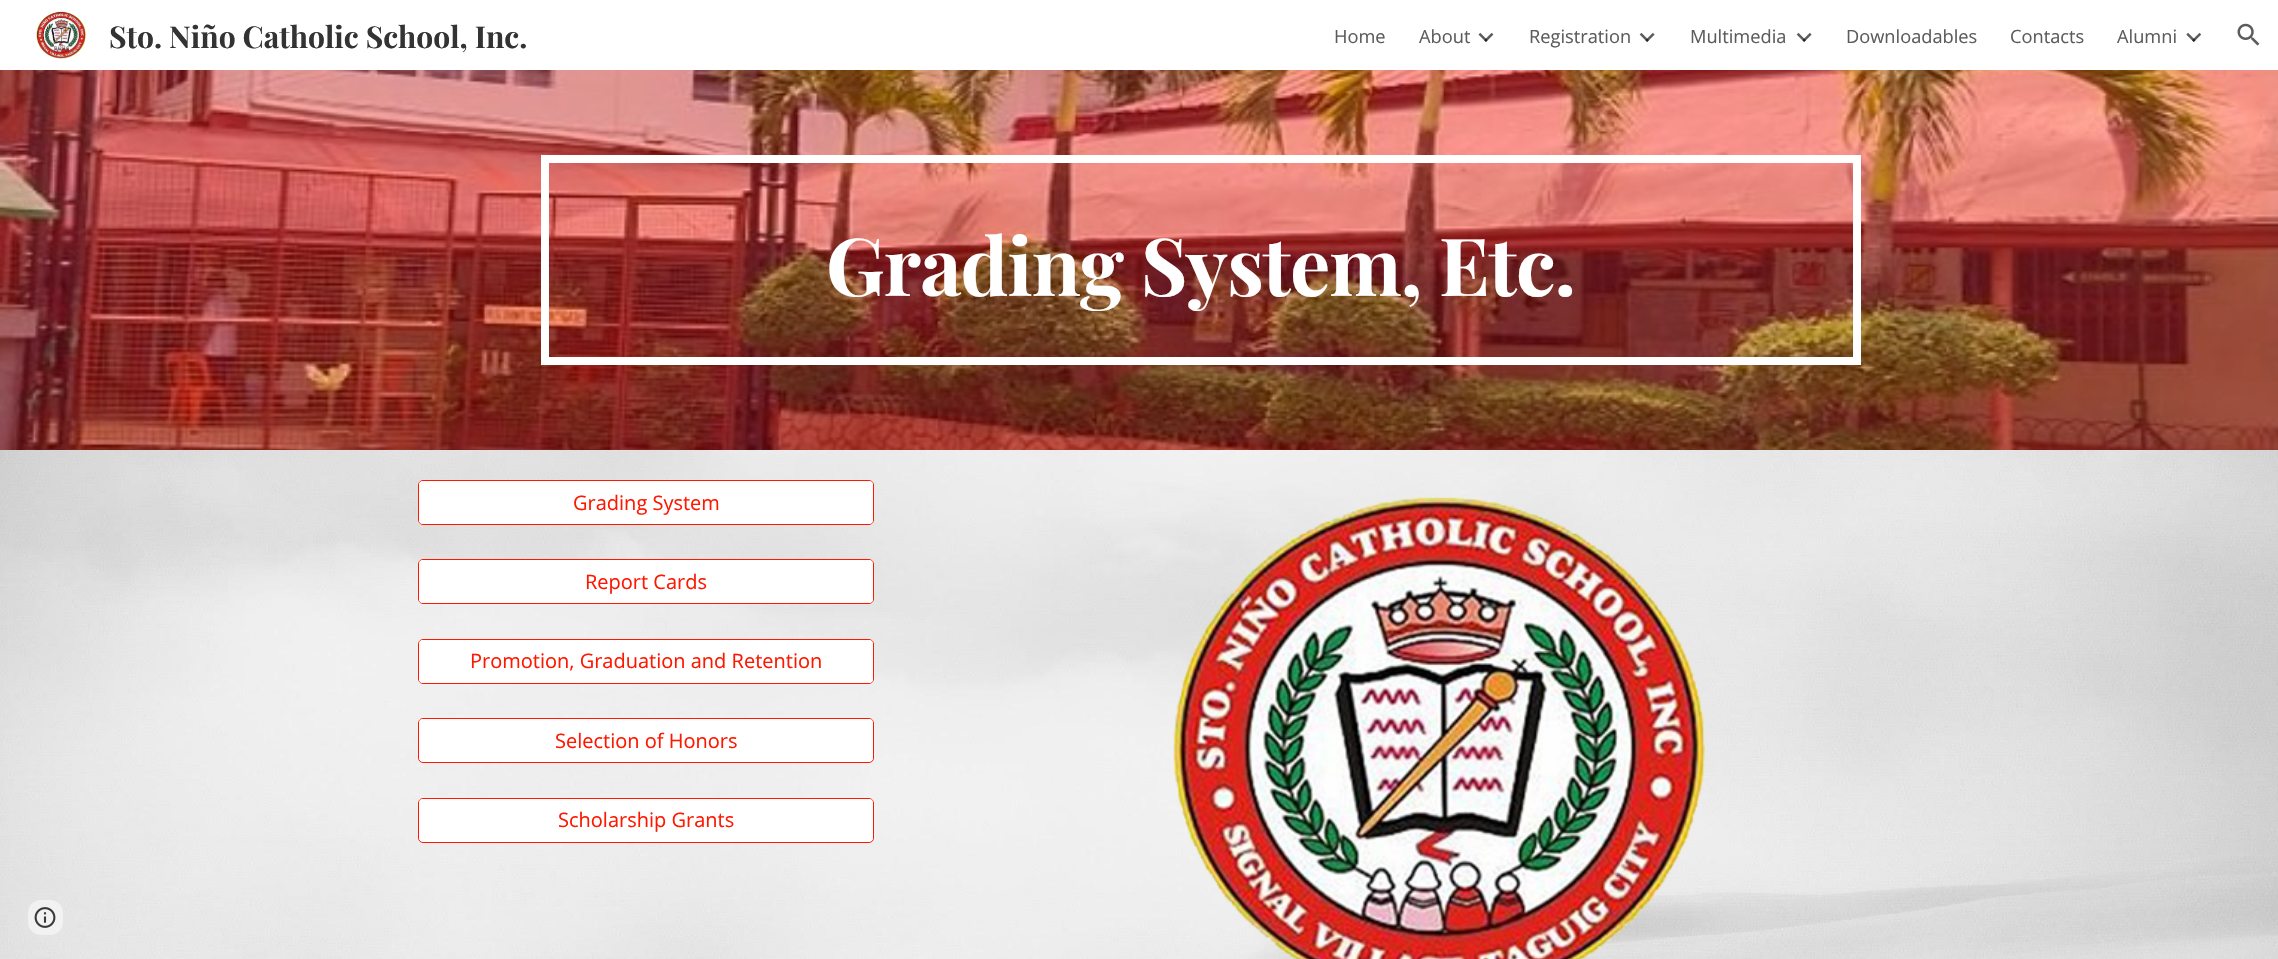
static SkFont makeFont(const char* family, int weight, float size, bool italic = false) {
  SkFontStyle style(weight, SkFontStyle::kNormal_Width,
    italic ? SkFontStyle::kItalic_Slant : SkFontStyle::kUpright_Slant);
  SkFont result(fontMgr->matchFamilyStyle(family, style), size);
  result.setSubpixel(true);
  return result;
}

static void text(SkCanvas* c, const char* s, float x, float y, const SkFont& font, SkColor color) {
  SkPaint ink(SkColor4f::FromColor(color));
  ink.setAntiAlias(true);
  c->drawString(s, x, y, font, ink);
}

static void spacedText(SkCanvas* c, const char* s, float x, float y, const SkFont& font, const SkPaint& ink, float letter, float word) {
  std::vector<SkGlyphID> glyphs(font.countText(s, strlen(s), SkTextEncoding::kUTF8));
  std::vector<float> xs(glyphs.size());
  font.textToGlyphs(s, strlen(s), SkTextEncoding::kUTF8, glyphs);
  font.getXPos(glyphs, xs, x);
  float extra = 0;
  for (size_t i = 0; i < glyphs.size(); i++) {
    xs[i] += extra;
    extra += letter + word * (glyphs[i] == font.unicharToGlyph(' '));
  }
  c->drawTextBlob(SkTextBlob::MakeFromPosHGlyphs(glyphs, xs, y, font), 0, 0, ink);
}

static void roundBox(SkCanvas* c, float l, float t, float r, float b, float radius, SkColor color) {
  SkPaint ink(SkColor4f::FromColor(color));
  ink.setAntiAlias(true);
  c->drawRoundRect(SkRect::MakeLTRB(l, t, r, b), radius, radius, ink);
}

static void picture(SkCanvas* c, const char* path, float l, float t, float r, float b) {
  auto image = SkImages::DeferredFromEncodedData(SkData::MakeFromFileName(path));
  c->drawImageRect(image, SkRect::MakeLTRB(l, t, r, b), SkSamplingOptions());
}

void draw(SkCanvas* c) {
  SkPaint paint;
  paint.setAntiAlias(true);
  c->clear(0xffffffff);
  picture(c, "img_01.png", 36, 11, 87, 59);
  SkFont face1 = makeFont("Playfair Display", 700, 30);
  text(c, "Sto. Niño Catholic School, Inc.", 109, 48, face1, 0xff333333);
  SkFont face2 = makeFont("Open Sans", 400, 18.25f);
  text(c, "Home", 1334, 43, face2, 0xff5c5c5c);
  text(c, "About", 1419, 43, face2, 0xff5c5c5c);
  picture(c, "img_02.png", 1478, 32, 1494, 42);
  text(c, "Registration", 1529, 43, face2, 0xff5c5c5c);
  picture(c, "img_03.png", 1639, 32, 1655, 42);
  text(c, "Multimedia", 1690, 43, face2, 0xff5c5c5c);
  picture(c, "img_04.png", 1796, 32, 1812, 42);
  text(c, "Downloadables", 1846, 43, face2, 0xff5c5c5c);
  text(c, "Contacts", 2010, 43, face2, 0xff5c5c5c);
  text(c, "Alumni", 2117, 43, face2, 0xff5c5c5c);
  picture(c, "img_05.png", 2186, 32, 2202, 42);
  picture(c, "img_06.png", 2237, 23, 2260, 46);
  picture(c, "img_07.png", 0, 70, 2278, 450);
  paint.setStyle(SkPaint::kStroke_Style);
  paint.setStrokeWidth(8);
  paint.setColor(0xffffffff);
  c->drawRect(SkRect::MakeLTRB(545, 159, 1857, 361), paint);
  SkFont face3 = makeFont("Playfair Display", 700, 80);
  paint.setStyle(SkPaint::kFill_Style);
  spacedText(c, "Grading System, Etc.", 826, 296, face3, paint, -1, 0);
  picture(c, "img_08.png", 0, 450, 2278, 959);
  paint.setStyle(SkPaint::kStroke_Style);
  paint.setStrokeWidth(1);
  paint.setColor(0xffff1800);
  c->drawRoundRect(SkRect::MakeLTRB(418.5f, 480.5f, 873.5f, 524.5f), 4.5f, 4.5f, paint);
  roundBox(c, 419, 481, 873, 524, 4, 0xffffffff);
  SkFont face4 = makeFont("Open Sans", 400, 20);
  text(c, "Grading System", 573, 510, face4, 0xffff1800);
  c->drawRoundRect(SkRect::MakeLTRB(418.5f, 559.5f, 873.5f, 603.5f), 4.5f, 4.5f, paint);
  roundBox(c, 419, 560, 873, 603, 4, 0xffffffff);
  text(c, "Report Cards", 585, 589, face4, 0xffff1800);
  c->drawRoundRect(SkRect::MakeLTRB(418.5f, 639.5f, 873.5f, 683.5f), 4.5f, 4.5f, paint);
  roundBox(c, 419, 640, 873, 683, 4, 0xffffffff);
  text(c, "Promotion, Graduation and Retention", 470, 668, face4, 0xffff1800);
  paint.setStyle(SkPaint::kFill_Style);
  paint.setColor(0xffffffff);
  c->drawRoundRect(SkRect::MakeLTRB(418.5f, 718.5f, 873.5f, 762.5f), 4.5f, 4.5f, paint);
  paint.setStyle(SkPaint::kStroke_Style);
  paint.setColor(0xffff1800);
  c->drawRoundRect(SkRect::MakeLTRB(418.5f, 718.5f, 873.5f, 762.5f), 4.5f, 4.5f, paint);
  roundBox(c, 419, 719, 873, 761, 4, 0xffffffff);
  text(c, "Selection of Honors", 555, 748, face4, 0xffff1800);
  paint.setStyle(SkPaint::kFill_Style);
  paint.setColor(0xffffffff);
  c->drawRoundRect(SkRect::MakeLTRB(418.5f, 798.5f, 873.5f, 842.5f), 4.5f, 4.5f, paint);
  paint.setStyle(SkPaint::kStroke_Style);
  paint.setColor(0xffff1800);
  c->drawRoundRect(SkRect::MakeLTRB(418.5f, 798.5f, 873.5f, 842.5f), 4.5f, 4.5f, paint);
  roundBox(c, 419, 799, 873, 841, 4, 0xffffffff);
  text(c, "Scholarship Grants", 558, 827, face4, 0xffff1800);
  picture(c, "img_09.png", 1173, 497, 1705, 959);
  roundBox(c, 28, 900, 63, 935, 13, 0x80ffffff);
  picture(c, "img_10.png", 34, 907, 56, 928);
}
